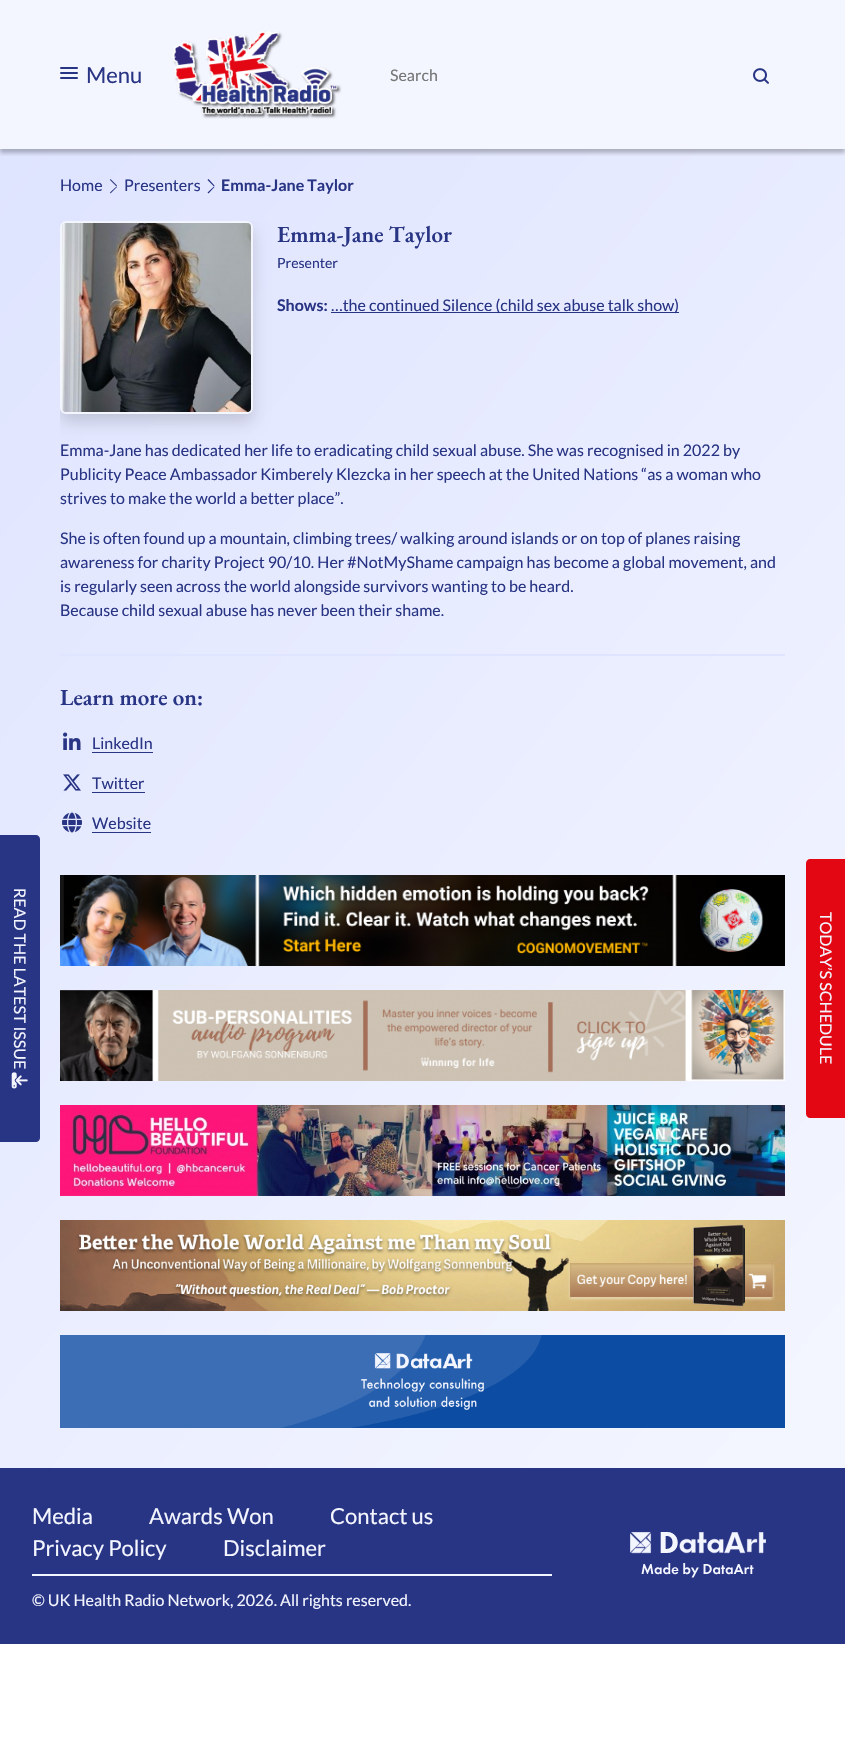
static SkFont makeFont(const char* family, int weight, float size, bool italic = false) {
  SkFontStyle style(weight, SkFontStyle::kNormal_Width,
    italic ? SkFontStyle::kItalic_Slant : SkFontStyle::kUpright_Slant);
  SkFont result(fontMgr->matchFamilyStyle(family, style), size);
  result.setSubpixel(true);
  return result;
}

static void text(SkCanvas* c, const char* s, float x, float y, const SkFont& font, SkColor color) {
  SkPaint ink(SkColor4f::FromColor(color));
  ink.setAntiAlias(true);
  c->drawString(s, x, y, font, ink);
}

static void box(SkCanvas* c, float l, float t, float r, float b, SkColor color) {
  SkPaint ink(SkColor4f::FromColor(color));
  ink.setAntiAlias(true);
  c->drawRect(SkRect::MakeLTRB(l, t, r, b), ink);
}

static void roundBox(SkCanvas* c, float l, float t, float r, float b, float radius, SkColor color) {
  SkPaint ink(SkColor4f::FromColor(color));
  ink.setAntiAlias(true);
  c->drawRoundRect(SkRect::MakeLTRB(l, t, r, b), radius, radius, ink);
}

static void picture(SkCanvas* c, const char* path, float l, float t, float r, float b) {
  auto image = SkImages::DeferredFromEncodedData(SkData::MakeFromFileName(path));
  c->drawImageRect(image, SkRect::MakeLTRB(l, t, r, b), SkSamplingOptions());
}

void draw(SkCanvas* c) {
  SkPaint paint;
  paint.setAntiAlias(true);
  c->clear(0xffffffff);
  box(c, 0, 0, 845, 149, 0xfff3f5ff);
  {
    const SkColor colors[] = {0xffdfe4ff, 0xfff3f5ff};
    const float stops[] = {0, 0.95f};
    const SkPoint ends[] = {{-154, 338}, {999, 1279}};
    paint.setShader(SkGradientShader::MakeLinear(ends, colors, stops, 2, SkTileMode::kClamp));
    paint.setAlpha(255);
  }
  c->drawRect(SkRect::MakeLTRB(0, 149, 845, 1468), paint);
  c->save();
  c->clipRect(SkRect::MakeLTRB(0, 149, 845, 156));
  paint.setShader(nullptr);
  paint.setColor(0x40000000);
  paint.setMaskFilter(SkMaskFilter::MakeBlur(kNormal_SkBlurStyle, 2));
  c->drawRect(SkRect::MakeLTRB(0, 4, 845, 153), paint);
  paint.setMaskFilter(nullptr);
  c->restore();
  roundBox(c, 60, 67, 78, 69, 1, 0xff283484);
  roundBox(c, 60, 72, 78, 74, 1, 0xff283484);
  roundBox(c, 60, 77, 78, 79, 1, 0xff283484);
  SkFont face1 = makeFont("Lato", 400, 22);
  text(c, "Menu", 86, 83, face1, 0xff283484);
  picture(c, "img_01.png", 172, 31, 342, 119);
  SkFont face2 = makeFont("Lato", 400, 16);
  text(c, "Search", 390, 81, face2, 0xff757575);
  picture(c, "img_02.png", 753, 68, 769, 84);
  text(c, "Home", 60, 191, face2, 0xff283484);
  paint.setColor(0xff283484);
  c->drawPath(SkPathBuilder().moveTo(110, 180).lineTo(110.5f, 179).lineTo(117, 185.5f).lineTo(116.5f, 186.5f).close().detach(), paint);
  c->drawPath(SkPathBuilder().moveTo(110, 192.5f).lineTo(116.5f, 186.5f).lineTo(117, 187).lineTo(110.5f, 193.5f).close().detach(), paint);
  text(c, "Presenters", 124, 191, face2, 0xff283484);
  c->drawPath(SkPathBuilder().moveTo(207.5f, 180).lineTo(208.5f, 179).lineTo(214.5f, 185.5f).lineTo(214, 186.5f).close().detach(), paint);
  c->drawPath(SkPathBuilder().moveTo(207.5f, 192.5f).lineTo(214, 186.5f).lineTo(214.5f, 187).lineTo(208.5f, 193.5f).close().detach(), paint);
  SkFont face3 = makeFont("Lato", 700, 16);
  text(c, "Emma-Jane Taylor", 221, 191, face3, 0xff283484);
  c->save();
  c->clipRect(SkRect::MakeLTRB(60, 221, 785, 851));
  paint.setColor(0x26000000);
  paint.setMaskFilter(SkMaskFilter::MakeBlur(kNormal_SkBlurStyle, 8));
  c->drawRoundRect(SkRect::MakeLTRB(60, 229, 253, 422), 6, 6, paint);
  paint.setMaskFilter(nullptr);
  c->restore();
  paint.setStyle(SkPaint::kStroke_Style);
  paint.setStrokeWidth(2);
  paint.setColor(0xfff3f5ff);
  c->drawRoundRect(SkRect::MakeLTRB(61, 222, 252, 413), 5, 5, paint);
  picture(c, "img_03.png", 62, 223, 251, 412);
  SkFont face4 = makeFont("EB Garamond", 600, 23);
  text(c, "Emma-Jane Taylor", 277, 242, face4, 0xff283484);
  SkFont face5 = makeFont("Lato", 400, 14);
  text(c, "Presenter", 277, 268, face5, 0xff283484);
  text(c, "Shows:", 277, 311, face3, 0xff283484);
  box(c, 331, 312, 679, 313, 0xff283484);
  text(c, "…the continued Silence (child sex abuse talk show)", 331, 311, face2, 0xff283484);
  box(c, 60, 654, 785, 656, 0xffdfe4ff);
  text(c, "Emma-Jane has dedicated her life to eradicating child sexual abuse. She was recognised in 2022 by", 60, 456, face2, 0xff283484);
  text(c, "Publicity Peace Ambassador Kimberely Klezcka in her speech at the United Nations “as a woman who", 60, 480, face2, 0xff283484);
  text(c, "strives to make the world a better place”.", 60, 504, face2, 0xff283484);
  text(c, "She is often found up a mountain, climbing trees/ walking around islands or on top of planes raising", 60, 544, face2, 0xff283484);
  text(c, "awareness for charity Project 90/10. Her #NotMyShame campaign has become a global movement, and", 60, 568, face2, 0xff283484);
  text(c, "is regularly seen across the world alongside survivors wanting to be heard.", 60, 592, face2, 0xff283484);
  text(c, "Because child sexual abuse has never been their shame.", 60, 616, face2, 0xff283484);
  text(c, "Learn more on:", 60, 705, face4, 0xff283484);
  picture(c, "img_04.png", 63, 732, 81, 750);
  text(c, "LinkedIn", 92, 749, face2, 0xff283484);
  box(c, 92, 752, 153, 753, 0xff283484);
  picture(c, "img_05.png", 63, 774, 81, 791);
  text(c, "Twitter", 92, 789, face2, 0xff283484);
  box(c, 92, 792, 145, 793, 0xff283484);
  picture(c, "img_06.png", 62, 812, 82, 833);
  text(c, "Website", 92, 829, face2, 0xff283484);
  box(c, 92, 832, 151, 833, 0xff283484);
  paint.setStyle(SkPaint::kFill_Style);
  paint.setColor(0xff283484);
  c->drawPath(SkPathBuilder().moveTo(40, 839).lineTo(40, 1138).cubicTo(40, 1140, 38, 1142, 36, 1142).lineTo(0, 1142).lineTo(0, 835).lineTo(36, 835).cubicTo(38, 835, 40, 837, 40, 839).close().detach(), paint);
  c->save();
  c->rotate(90, 14, 888);
  text(c, "READ THE LATEST ISSUE", 14, 888, face2, 0xfff3f5ff);
  c->restore();
  picture(c, "img_07.png", 11, 1072, 28, 1089);
  picture(c, "img_08.png", 60, 875, 785, 966);
  picture(c, "img_09.png", 60, 990, 785, 1081);
  picture(c, "img_10.png", 60, 1105, 785, 1196);
  picture(c, "img_11.png", 60, 1220, 785, 1311);
  picture(c, "img_12.png", 60, 1335, 785, 1428);
  paint.setColor(0xffe30613);
  c->drawPath(SkPathBuilder().moveTo(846, 859).lineTo(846, 1118).lineTo(810, 1118).cubicTo(808, 1118, 806, 1116, 806, 1114).lineTo(806, 863).cubicTo(806, 861, 808, 859, 810, 859).close().detach(), paint);
  c->save();
  c->rotate(90, 820, 912);
  text(c, "TODAY’S SCHEDULE", 820, 912, face2, 0xfff3f5ff);
  c->restore();
  box(c, 0, 1468, 845, 1644, 0xff283484);
  text(c, "Media", 32, 1524, face1, 0xfff3f5ff);
  text(c, "Awards Won", 149, 1524, face1, 0xfff3f5ff);
  text(c, "Contact us", 330, 1524, face1, 0xfff3f5ff);
  text(c, "Privacy Policy", 32, 1556, face1, 0xfff3f5ff);
  text(c, "Disclaimer", 223, 1556, face1, 0xfff3f5ff);
  box(c, 32, 1574, 552, 1576, 0xfff3f5ff);
  text(c, "© UK Health Radio Network, 2026. All rights reserved.", 32, 1606, face2, 0xfff3f5ff);
  picture(c, "img_13.png", 630, 1532, 766, 1578);
}
